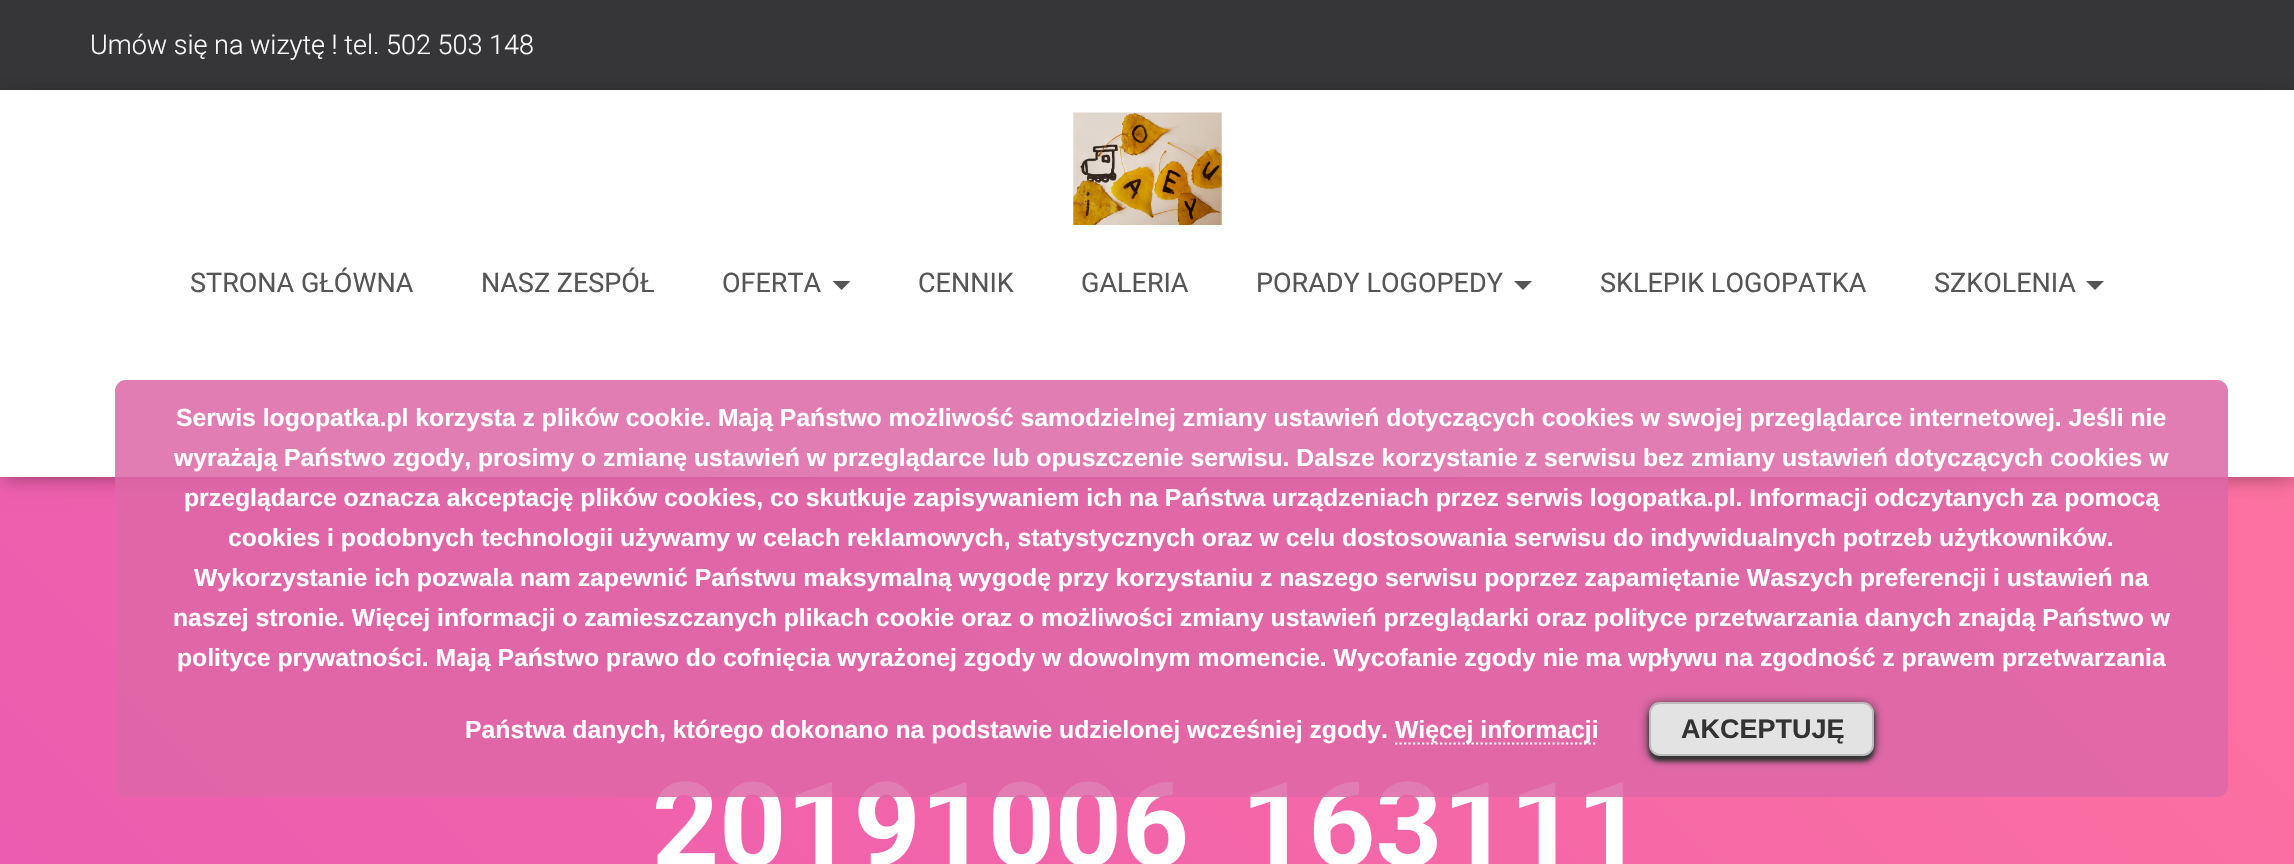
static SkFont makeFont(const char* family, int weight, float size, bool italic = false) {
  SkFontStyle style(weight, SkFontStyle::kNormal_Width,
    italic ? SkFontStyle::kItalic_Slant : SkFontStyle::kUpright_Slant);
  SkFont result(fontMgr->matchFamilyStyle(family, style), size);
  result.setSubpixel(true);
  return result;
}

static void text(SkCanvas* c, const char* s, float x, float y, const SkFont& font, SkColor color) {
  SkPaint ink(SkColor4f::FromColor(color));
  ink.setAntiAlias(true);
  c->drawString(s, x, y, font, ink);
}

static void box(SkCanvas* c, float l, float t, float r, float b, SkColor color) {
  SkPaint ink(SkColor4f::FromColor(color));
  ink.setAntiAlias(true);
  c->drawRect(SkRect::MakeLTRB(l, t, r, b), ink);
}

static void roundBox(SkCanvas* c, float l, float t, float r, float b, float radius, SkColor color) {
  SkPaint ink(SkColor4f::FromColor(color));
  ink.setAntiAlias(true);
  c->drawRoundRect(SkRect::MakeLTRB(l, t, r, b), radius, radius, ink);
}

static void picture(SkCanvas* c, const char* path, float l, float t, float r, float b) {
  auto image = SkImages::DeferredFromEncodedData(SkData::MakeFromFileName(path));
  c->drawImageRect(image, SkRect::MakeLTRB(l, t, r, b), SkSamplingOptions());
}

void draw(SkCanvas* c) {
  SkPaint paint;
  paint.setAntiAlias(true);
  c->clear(0xff363537);
  SkFont face1 = makeFont("Roboto", 300, 27);
  text(c, "Umów się na wizytę ! tel. 502 503 148", 90, 54, face1, 0xffffffff);
  {
    const SkColor colors[] = {0xffe858b3, 0xffff749e};
    const float stops[] = {0, 1};
    const SkPoint ends[] = {{245, 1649}, {2050, -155}};
    paint.setShader(SkGradientShader::MakeLinear(ends, colors, stops, 2, SkTileMode::kClamp));
    paint.setAlpha(255);
  }
  c->drawRect(SkRect::MakeLTRB(0, 477, 2294, 864), paint);
  paint.setShader(nullptr);
  paint.setColor(0x1a000000);
  paint.setMaskFilter(SkMaskFilter::MakeBlur(kNormal_SkBlurStyle, 5.5f));
  c->drawRect(SkRect::MakeLTRB(5, 104, 2291, 482), paint);
  paint.setMaskFilter(nullptr);
  paint.setColor(0x1f000000);
  paint.setMaskFilter(SkMaskFilter::MakeBlur(kNormal_SkBlurStyle, 11));
  c->drawRect(SkRect::MakeLTRB(0, 92, 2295, 479), paint);
  paint.setMaskFilter(nullptr);
  paint.setColor(0x6b000000);
  paint.setMaskFilter(SkMaskFilter::MakeBlur(kNormal_SkBlurStyle, 11));
  c->drawRect(SkRect::MakeLTRB(14, 106, 2282, 466), paint);
  paint.setMaskFilter(nullptr);
  box(c, 0, 90, 2294, 477, 0xffffffff);
  picture(c, "img_01.png", 1073, 112, 1222, 225);
  SkFont face2 = makeFont("Roboto", 400, 27);
  text(c, "STRONA GŁÓWNA", 190, 292, face2, 0xff555555);
  text(c, "NASZ ZESPÓŁ", 481, 292, face2, 0xff555555);
  text(c, "OFERTA", 722, 292, face2, 0xff555555);
  paint.setColor(0xff555555);
  c->drawPath(SkPathBuilder().moveTo(832.5f, 281).lineTo(850.5f, 281).lineTo(841.5f, 290).close().detach(), paint);
  text(c, "CENNIK", 918, 292, face2, 0xff555555);
  text(c, "GALERIA", 1081, 292, face2, 0xff555555);
  text(c, "PORADY LOGOPEDY", 1256, 292, face2, 0xff555555);
  c->drawPath(SkPathBuilder().moveTo(1514, 281).lineTo(1532, 281).lineTo(1523, 290).close().detach(), paint);
  text(c, "SKLEPIK LOGOPATKA", 1600, 292, face2, 0xff555555);
  text(c, "SZKOLENIA", 1934, 292, face2, 0xff555555);
  c->drawPath(SkPathBuilder().moveTo(2086, 281).lineTo(2104, 281).lineTo(2095, 290).close().detach(), paint);
  SkFont face3 = makeFont("Roboto", 700, 117);
  text(c, "20191006_163111", 652, 866, face3, 0xffffffff);
  roundBox(c, 115, 380, 2228, 797, 11, 0xd9dd66a7);
  SkFont face4 = makeFont("Liberation Sans", 700, 24.75f);
  text(c, "Serwis logopatka.pl korzysta z plików cookie. Mają Państwo możliwość samodzielnej zmiany ustawień dotyczących cookies w swojej przeglądarce internetowej. Jeśli nie", 176, 426, face4, 0xffffffff);
  text(c, "wyrażają Państwo zgody, prosimy o zmianę ustawień w przeglądarce lub opuszczenie serwisu. Dalsze korzystanie z serwisu bez zmiany ustawień dotyczących cookies w", 174, 466, face4, 0xffffffff);
  text(c, "przeglądarce oznacza akceptację plików cookies, co skutkuje zapisywaniem ich na Państwa urządzeniach przez serwis logopatka.pl. Informacji odczytanych za pomocą", 184, 506, face4, 0xffffffff);
  text(c, "cookies i podobnych technologii używamy w celach reklamowych, statystycznych oraz w celu dostosowania serwisu do indywidualnych potrzeb użytkowników.", 228, 546, face4, 0xffffffff);
  text(c, "Wykorzystanie ich pozwala nam zapewnić Państwu maksymalną wygodę przy korzystaniu z naszego serwisu poprzez zapamiętanie Waszych preferencji i ustawień na", 194, 586, face4, 0xffffffff);
  text(c, "naszej stronie. Więcej informacji o zamieszczanych plikach cookie oraz o możliwości zmiany ustawień przeglądarki oraz polityce przetwarzania danych znajdą Państwo w", 173, 626, face4, 0xffffffff);
  text(c, "polityce prywatności. Mają Państwo prawo do cofnięcia wyrażonej zgody w dowolnym momencie. Wycofanie zgody nie ma wpływu na zgodność z prawem przetwarzania", 177, 666, face4, 0xffffffff);
  text(c, "Państwa danych, którego dokonano na podstawie udzielonej wcześniej zgody.", 465, 738, face4, 0xffffffff);
  paint.setStyle(SkPaint::kStroke_Style);
  paint.setStrokeWidth(2.2f);
  paint.setColor(0xffffffff);
  paint.setPathEffect(SkDashPathEffect::Make({{2.25f, 2.25f}}, 0));
  c->drawPath(SkPathBuilder().moveTo(1395, 743.5f).lineTo(1597.5f, 743.5f).detach(), paint);
  paint.setPathEffect(nullptr);
  text(c, "Więcej informacji", 1395, 738, face4, 0xffffffff);
  paint.setStyle(SkPaint::kFill_Style);
  paint.setColor(0xff333333);
  paint.setMaskFilter(SkMaskFilter::MakeBlur(kNormal_SkBlurStyle, 5.5f));
  c->drawRoundRect(SkRect::MakeLTRB(1649, 704, 1874, 758), 11, 11, paint);
  paint.setMaskFilter(nullptr);
  paint.setMaskFilter(SkMaskFilter::MakeBlur(kNormal_SkBlurStyle, 1));
  c->drawRoundRect(SkRect::MakeLTRB(1654, 713, 1870, 758), 7, 7, paint);
  paint.setMaskFilter(nullptr);
  paint.setMaskFilter(SkMaskFilter::MakeBlur(kNormal_SkBlurStyle, 2));
  c->drawRoundRect(SkRect::MakeLTRB(1649, 707, 1874, 761), 11, 11, paint);
  paint.setMaskFilter(nullptr);
  paint.setColor(0xffe3e3e3);
  c->drawRoundRect(SkRect::MakeLTRB(1650, 703, 1873, 755), 10, 10, paint);
  paint.setStyle(SkPaint::kStroke_Style);
  paint.setStrokeWidth(2);
  paint.setColor(0xffbbbbbb);
  c->drawRoundRect(SkRect::MakeLTRB(1650, 703, 1873, 755), 10, 10, paint);
  SkFont face5 = makeFont("Liberation Sans", 700, 27);
  text(c, "AKCEPTUJĘ", 1681, 738, face5, 0xff333333);
}
